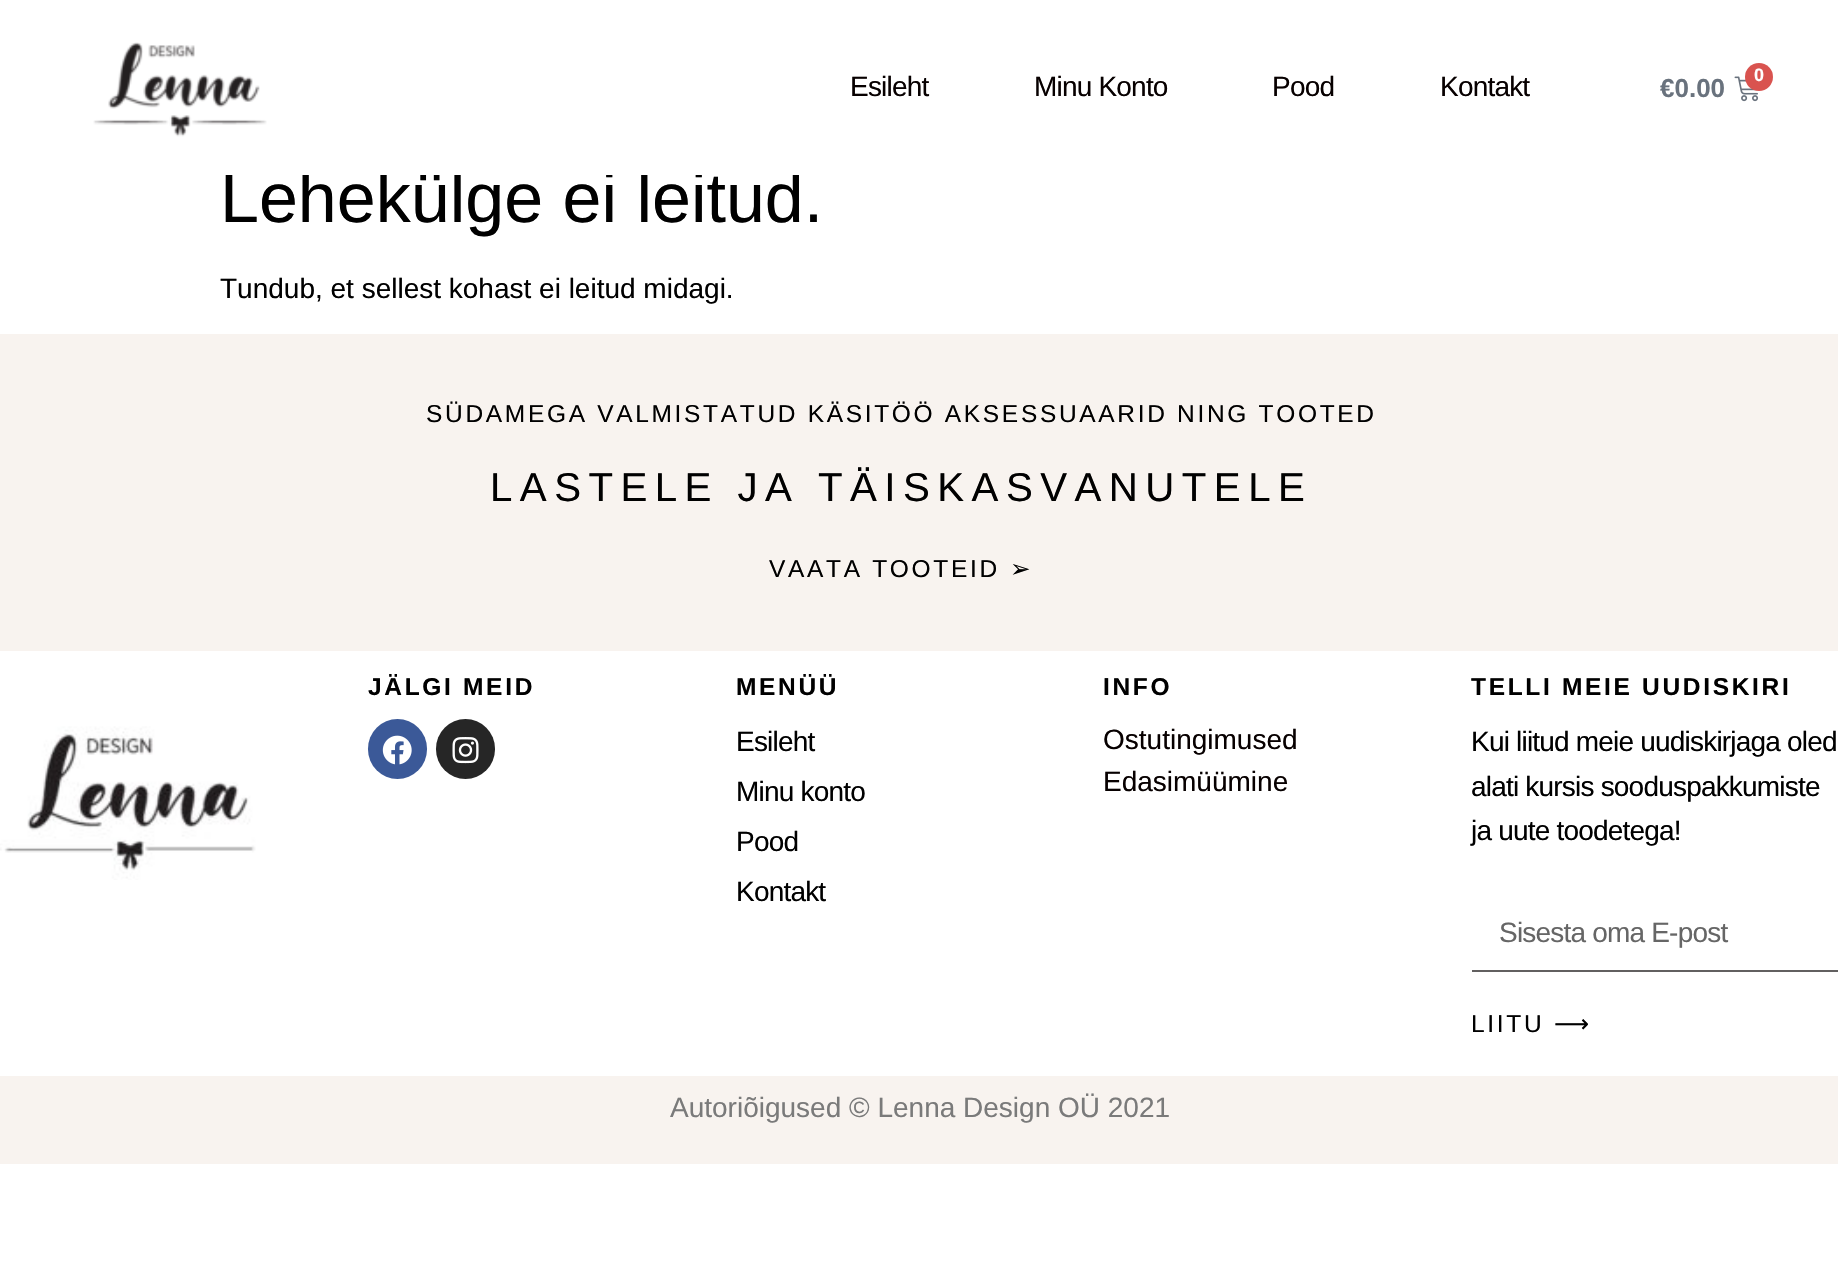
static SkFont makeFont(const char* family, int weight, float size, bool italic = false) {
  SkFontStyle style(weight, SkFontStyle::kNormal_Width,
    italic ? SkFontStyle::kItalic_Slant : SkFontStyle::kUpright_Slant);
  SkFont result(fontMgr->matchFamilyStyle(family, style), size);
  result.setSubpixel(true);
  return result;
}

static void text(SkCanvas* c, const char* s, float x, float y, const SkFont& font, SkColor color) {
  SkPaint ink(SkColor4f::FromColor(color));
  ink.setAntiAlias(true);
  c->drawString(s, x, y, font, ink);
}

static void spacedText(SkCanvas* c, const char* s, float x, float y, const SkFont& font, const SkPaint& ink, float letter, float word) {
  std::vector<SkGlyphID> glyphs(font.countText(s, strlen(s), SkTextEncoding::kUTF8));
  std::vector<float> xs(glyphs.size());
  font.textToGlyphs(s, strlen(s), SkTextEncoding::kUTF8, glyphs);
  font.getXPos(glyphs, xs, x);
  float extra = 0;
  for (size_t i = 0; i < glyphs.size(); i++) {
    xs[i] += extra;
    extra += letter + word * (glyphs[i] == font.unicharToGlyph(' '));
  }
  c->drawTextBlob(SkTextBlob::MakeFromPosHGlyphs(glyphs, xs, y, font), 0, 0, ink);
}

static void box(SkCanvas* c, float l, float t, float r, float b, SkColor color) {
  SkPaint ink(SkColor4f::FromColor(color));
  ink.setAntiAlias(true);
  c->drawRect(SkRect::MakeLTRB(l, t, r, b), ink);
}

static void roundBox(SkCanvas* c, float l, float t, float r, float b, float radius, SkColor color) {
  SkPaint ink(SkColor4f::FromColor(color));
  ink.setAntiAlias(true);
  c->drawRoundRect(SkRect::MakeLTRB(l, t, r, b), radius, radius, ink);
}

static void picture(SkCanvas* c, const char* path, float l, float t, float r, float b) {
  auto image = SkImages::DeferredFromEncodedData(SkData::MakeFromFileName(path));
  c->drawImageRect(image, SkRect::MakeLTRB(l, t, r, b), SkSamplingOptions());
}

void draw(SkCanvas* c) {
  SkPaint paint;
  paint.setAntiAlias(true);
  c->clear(0xffffffff);
  SkFont face1 = makeFont("Liberation Sans", 400, 70);
  text(c, "Lehekülge ei leitud.", 220, 222, face1, 0xff000000);
  box(c, 225, 171, 799, 175, 0xffffffff);
  picture(c, "img_01.png", 93, 42, 267, 137);
  SkFont face2 = makeFont("Liberation Sans", 400, 28);
  paint.setColor(0xff070000);
  spacedText(c, "Esileht", 850, 96, face2, paint, -0.8f, 0);
  spacedText(c, "Minu Konto", 1034, 96, face2, paint, -0.8f, 0);
  spacedText(c, "Pood", 1272, 96, face2, paint, -0.8f, 0);
  spacedText(c, "Kontakt", 1440, 96, face2, paint, -0.8f, 0);
  picture(c, "img_02.png", 1734, 76, 1758, 102);
  paint.setColor(0xffd9534f);
  c->drawCircle(1759, 77, 14, paint);
  SkFont face3 = makeFont("Liberation Sans", 700, 18);
  text(c, "0", 1754, 81, face3, 0xffffffff);
  SkFont face4 = makeFont("Liberation Sans", 700, 26);
  text(c, "€0.00", 1660, 97, face4, 0xff69727d);
  text(c, "Tundub, et sellest kohast ei leitud midagi.", 220, 298, face2, 0xff000000);
  box(c, 0, 334, 1838, 651, 0xfff8f3ef);
  SkFont face5 = makeFont("Liberation Sans", 400, 24.5f);
  paint.setColor(0xff000000);
  spacedText(c, "SÜDAMEGA VALMISTATUD KÄSITÖÖ AKSESSUAARID NING TOOTED", 426, 422, face5, paint, 2.68f, 0);
  SkFont face6 = makeFont("Liberation Sans", 400, 40.25f);
  spacedText(c, "LASTELE JA TÄISKASVANUTELE", 490, 501, face6, paint, 7.45f, 0);
  spacedText(c, "VAATA TOOTEID", 769, 577, face5, paint, 2.68f, 0);
  SkFont face7 = makeFont("DejaVu Sans", 400, 24.5f);
  spacedText(c, "➢", 1010, 577, face7, paint, 2.68f, 0);
  picture(c, "img_03.png", 0, 726, 256, 880);
  SkFont face8 = makeFont("Liberation Sans", 700, 24.5f);
  spacedText(c, "JÄLGI MEID", 368, 695, face8, paint, 2.68f, 0);
  roundBox(c, 368, 719, 427, 779, 29.5f, 0xff3b5998);
  picture(c, "img_04.png", 382, 735, 412, 765);
  roundBox(c, 436, 719, 495, 779, 29.5f, 0xff262626);
  picture(c, "img_05.png", 452, 737, 479, 764);
  spacedText(c, "MENÜÜ", 736, 695, face8, paint, 2.68f, 0);
  spacedText(c, "Esileht", 736, 751, face2, paint, -0.8f, 0);
  spacedText(c, "Minu konto", 736, 801, face2, paint, -0.8f, 0);
  spacedText(c, "Pood", 736, 851, face2, paint, -0.8f, 0);
  spacedText(c, "Kontakt", 736, 901, face2, paint, -0.8f, 0);
  spacedText(c, "INFO", 1103, 695, face8, paint, 2.68f, 0);
  text(c, "Ostutingimused", 1103, 749, face2, 0xff070000);
  text(c, "Edasimüümine", 1103, 791, face2, 0xff070000);
  spacedText(c, "TELLI MEIE UUDISKIRI", 1471, 695, face8, paint, 2.68f, 0);
  spacedText(c, "Kui liitud meie uudiskirjaga oled", 1471, 751, face2, paint, -0.8f, 0);
  spacedText(c, "alati kursis sooduspakkumiste", 1471, 796, face2, paint, -0.8f, 0);
  spacedText(c, "ja uute toodetega!", 1471, 840, face2, paint, -0.8f, 0);
  box(c, 1472, 970, 1838, 972, 0xff626060);
  paint.setColor(0xff666666);
  spacedText(c, "Sisesta oma E-post", 1499, 942, face2, paint, -0.8f, 0);
  paint.setColor(0xff000000);
  spacedText(c, "LIITU", 1471, 1032, face5, paint, 2.68f, 0);
  spacedText(c, "⟶", 1554, 1032, face7, paint, 2.68f, 0);
  box(c, 0, 1076, 1838, 1164, 0xfff8f3ef);
  text(c, "Autoriõigused © Lenna Design OÜ 2021", 670, 1117, face2, 0xff7a7a7a);
}
